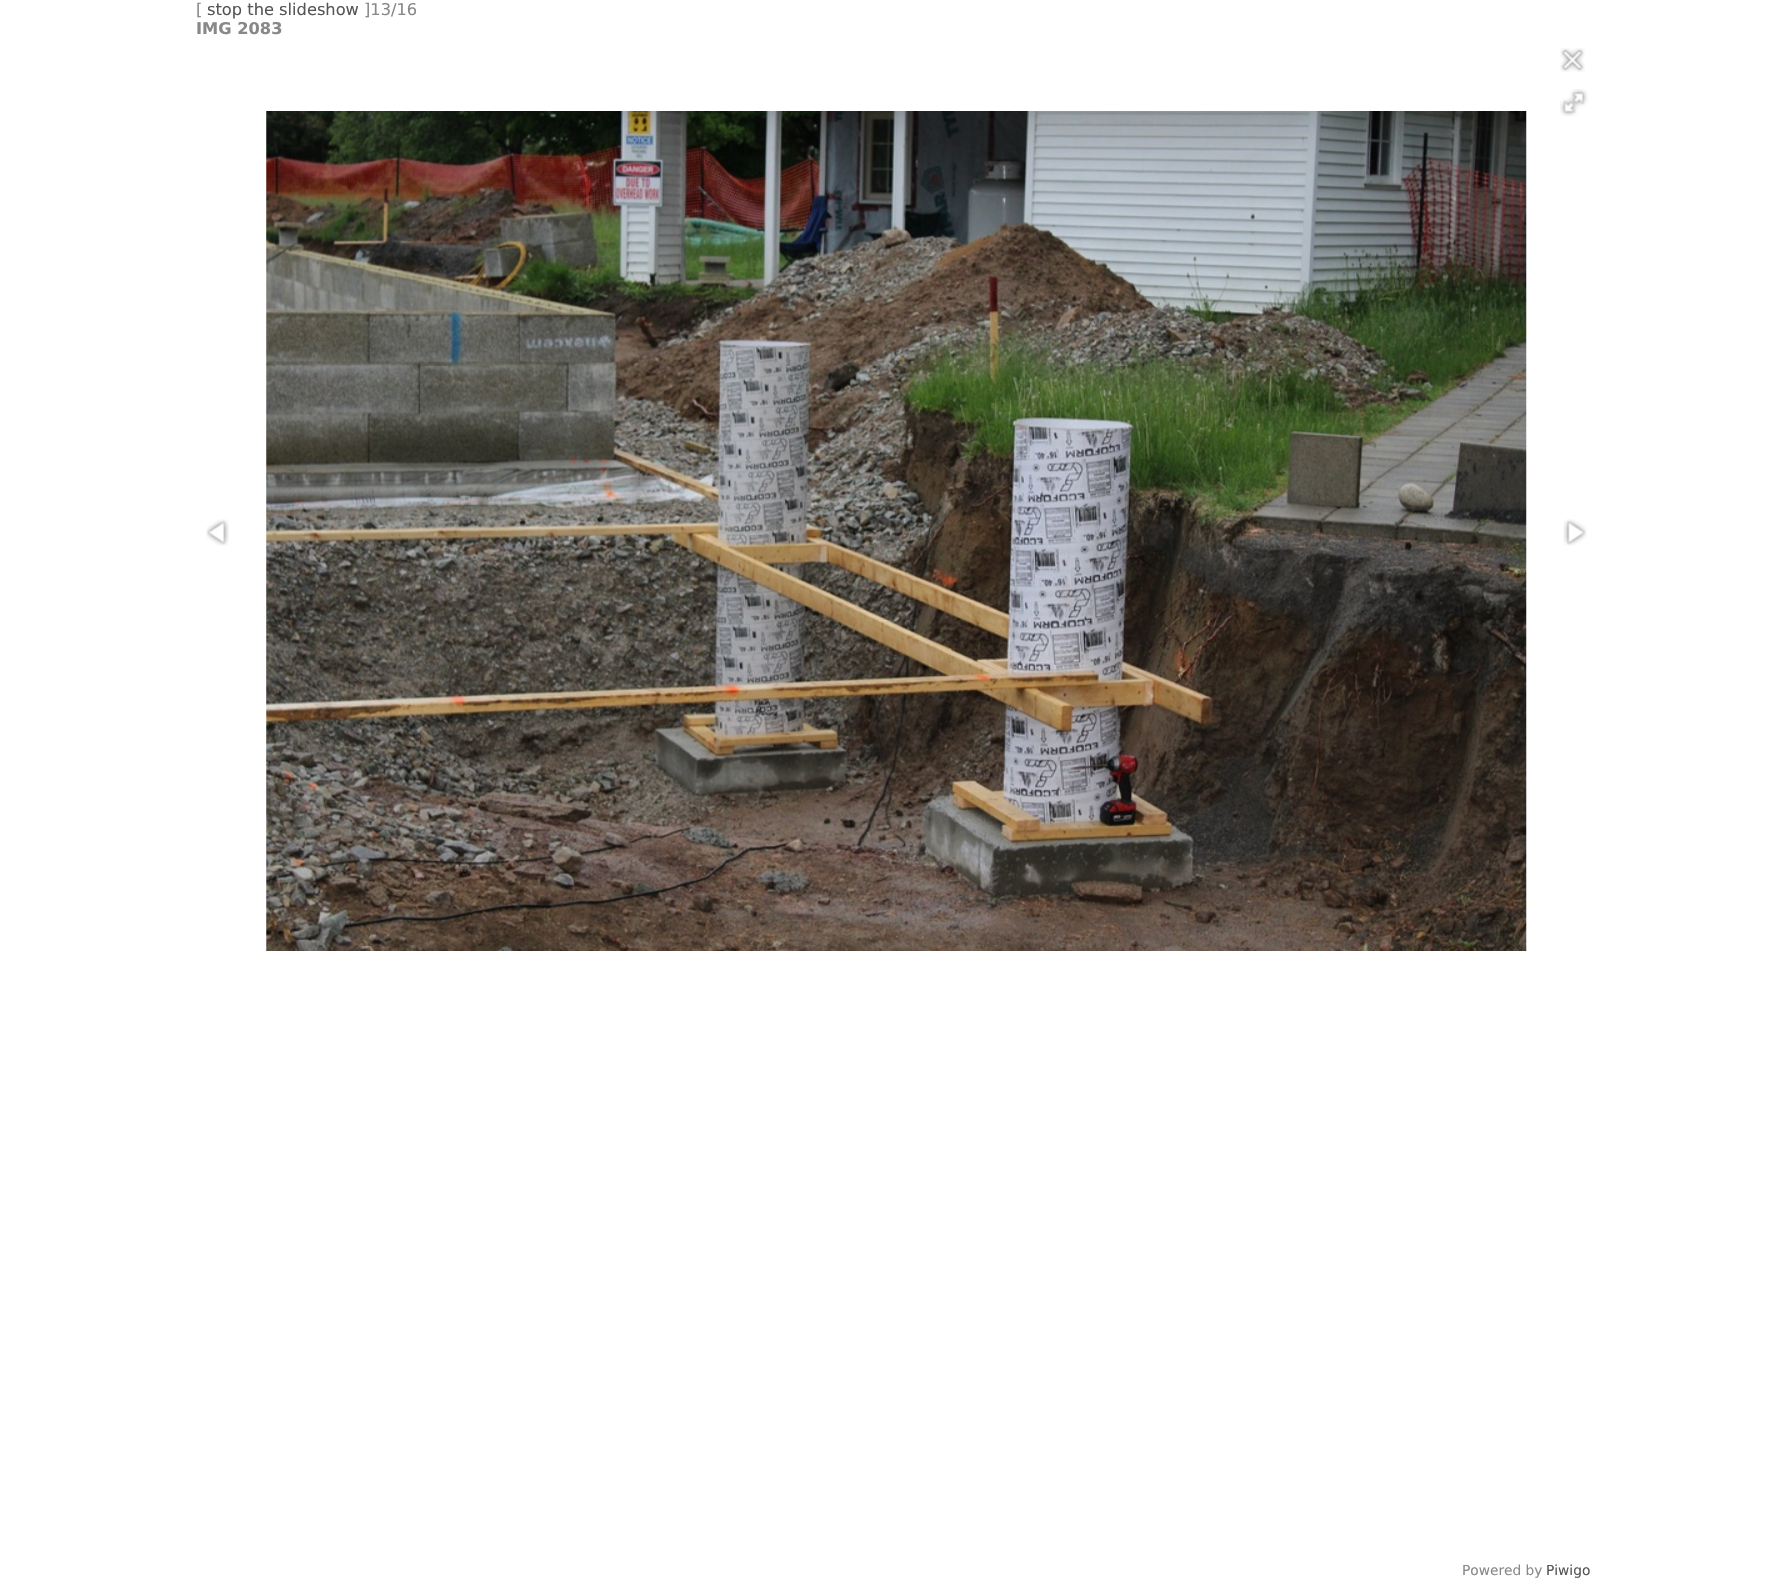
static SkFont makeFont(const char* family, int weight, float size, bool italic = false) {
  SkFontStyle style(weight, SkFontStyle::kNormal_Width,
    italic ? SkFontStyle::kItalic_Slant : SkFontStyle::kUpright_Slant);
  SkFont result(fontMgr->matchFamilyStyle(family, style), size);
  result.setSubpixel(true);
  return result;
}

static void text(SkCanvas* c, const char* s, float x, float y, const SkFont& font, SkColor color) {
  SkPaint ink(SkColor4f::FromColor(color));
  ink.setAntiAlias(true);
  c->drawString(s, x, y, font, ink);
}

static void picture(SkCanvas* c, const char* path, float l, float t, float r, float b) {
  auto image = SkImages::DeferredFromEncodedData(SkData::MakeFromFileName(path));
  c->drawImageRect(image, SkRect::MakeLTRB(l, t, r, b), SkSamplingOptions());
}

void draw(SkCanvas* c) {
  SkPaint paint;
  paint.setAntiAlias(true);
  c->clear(0xffffffff);
  SkFont face1 = makeFont("DejaVu Sans", 400, 16.25f);
  text(c, "[", 196, 15, face1, 0xff888888);
  text(c, "stop the slideshow", 207, 15, face1, 0xff555555);
  text(c, "]13/16", 364, 15, face1, 0xff888888);
  SkFont face2 = makeFont("DejaVu Sans", 700, 16.25f);
  text(c, "IMG 2083", 196, 34, face2, 0xff888888);
  picture(c, "img_01.png", 1560, 48, 1585, 72);
  picture(c, "img_02.png", 1560, 89, 1588, 116);
  picture(c, "img_03.png", 206, 519, 229, 546);
  picture(c, "img_04.png", 266, 111, 1527, 951);
  picture(c, "img_05.png", 1563, 519, 1587, 546);
  SkFont face3 = makeFont("DejaVu Sans", 400, 13.75f);
  text(c, "Powered by", 1462, 1575, face3, 0xff888888);
  text(c, "Piwigo", 1546, 1575, face3, 0xff555555);
}
